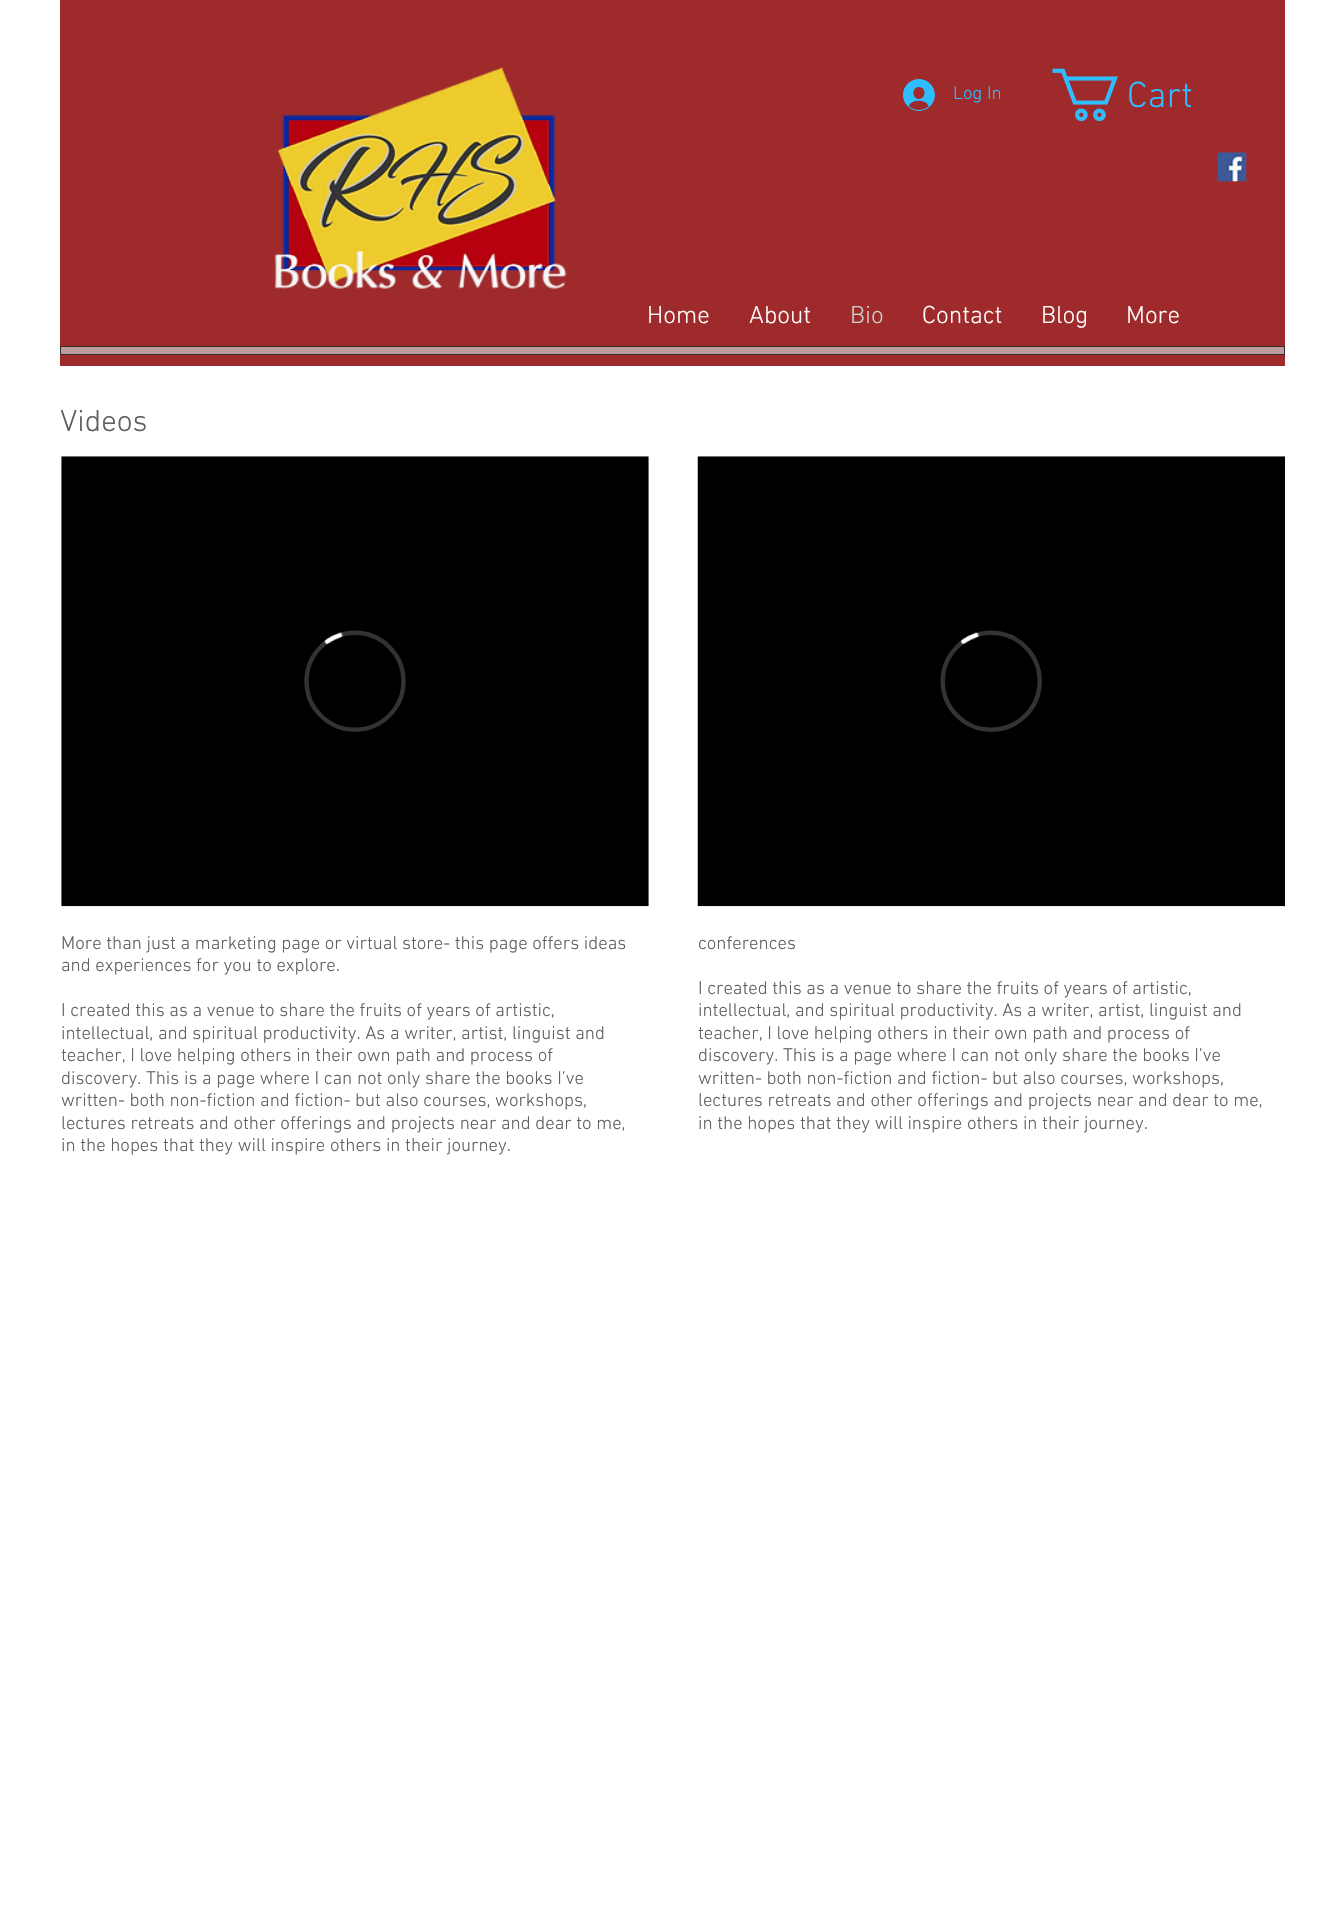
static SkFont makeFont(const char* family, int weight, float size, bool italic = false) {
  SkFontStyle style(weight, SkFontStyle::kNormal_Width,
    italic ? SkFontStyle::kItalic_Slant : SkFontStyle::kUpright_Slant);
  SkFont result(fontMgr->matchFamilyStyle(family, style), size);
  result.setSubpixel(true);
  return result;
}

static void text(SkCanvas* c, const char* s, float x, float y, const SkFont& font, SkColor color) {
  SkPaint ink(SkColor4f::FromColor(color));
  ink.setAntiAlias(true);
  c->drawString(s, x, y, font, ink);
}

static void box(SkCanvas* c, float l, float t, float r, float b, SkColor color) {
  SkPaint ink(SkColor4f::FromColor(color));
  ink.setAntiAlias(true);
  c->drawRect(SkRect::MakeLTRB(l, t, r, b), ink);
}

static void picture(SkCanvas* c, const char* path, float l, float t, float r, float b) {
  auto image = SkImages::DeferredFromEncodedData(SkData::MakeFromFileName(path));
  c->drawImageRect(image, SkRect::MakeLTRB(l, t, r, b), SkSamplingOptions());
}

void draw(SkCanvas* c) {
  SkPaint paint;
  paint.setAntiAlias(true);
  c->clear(0xffffffff);
  box(c, 60, 0, 1285, 366, 0xff9e2a2b);
  picture(c, "img_01.png", 274, 67, 567, 289);
  picture(c, "img_02.png", 903, 79, 935, 111);
  SkFont face1 = makeFont("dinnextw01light", 300, 18.75f);
  text(c, "Log In", 953, 99, face1, 0xff30bdff);
  picture(c, "img_03.png", 1052, 68, 1118, 122);
  SkFont face2 = makeFont("dinnextw01light", 300, 37);
  text(c, "Cart", 1127, 107, face2, 0xff30bdff);
  picture(c, "img_04.png", 1217, 152, 1247, 182);
  SkFont face3 = makeFont("dinnextw01light", 300, 25);
  text(c, "Home", 647, 323, face3, 0xffffffff);
  text(c, "About", 749, 323, face3, 0xffffffff);
  text(c, "Bio", 850, 323, face3, 0xffcccccc);
  text(c, "Contact", 922, 323, face3, 0xffffffff);
  text(c, "Blog", 1041, 323, face3, 0xffffffff);
  text(c, "More", 1126, 323, face3, 0xffffffff);
  paint.setColor(0xffbe9b9c);
  c->drawRect(SkRect::MakeLTRB(60.5f, 346.5f, 1284.5f, 354.5f), paint);
  paint.setStyle(SkPaint::kStroke_Style);
  paint.setStrokeWidth(1);
  paint.setColor(0xff2f2e2e);
  c->drawRect(SkRect::MakeLTRB(60.5f, 346.5f, 1284.5f, 354.5f), paint);
  SkFont face4 = makeFont("dinnextw01light", 300, 31);
  text(c, "Videos", 60, 431, face4, 0xff605e5e);
  picture(c, "img_05.png", 61, 456, 649, 907);
  picture(c, "img_06.png", 697, 456, 1285, 907);
  text(c, "More than just a marketing page or virtual store- this page offers ideas", 61, 949, face1, 0xff605e5e);
  text(c, "and experiences for you to explore.", 61, 971, face1, 0xff605e5e);
  text(c, "I created this as a venue to share the fruits of years of artistic,", 61, 1016, face1, 0xff605e5e);
  text(c, "intellectual, and spiritual productivity. As a writer, artist, linguist and", 61, 1039, face1, 0xff605e5e);
  text(c, "teacher, I love helping others in their own path and process of", 61, 1061, face1, 0xff605e5e);
  text(c, "discovery. This is a page where I can not only share the books I’ve", 61, 1084, face1, 0xff605e5e);
  text(c, "written- both non-fiction and fiction- but also courses, workshops,", 61, 1106, face1, 0xff605e5e);
  text(c, "lectures retreats and other offerings and projects near and dear to me,", 61, 1129, face1, 0xff605e5e);
  text(c, "in the hopes that they will inspire others in their journey.", 61, 1151, face1, 0xff605e5e);
  text(c, "conferences", 698, 949, face1, 0xff605e5e);
  text(c, "I created this as a venue to share the fruits of years of artistic,", 698, 994, face1, 0xff605e5e);
  text(c, "intellectual, and spiritual productivity. As a writer, artist, linguist and", 698, 1016, face1, 0xff605e5e);
  text(c, "teacher, I love helping others in their own path and process of", 698, 1039, face1, 0xff605e5e);
  text(c, "discovery. This is a page where I can not only share the books I’ve", 698, 1061, face1, 0xff605e5e);
  text(c, "written- both non-fiction and fiction- but also courses, workshops,", 698, 1084, face1, 0xff605e5e);
  text(c, "lectures retreats and other offerings and projects near and dear to me,", 698, 1106, face1, 0xff605e5e);
  text(c, "in the hopes that they will inspire others in their journey.", 698, 1129, face1, 0xff605e5e);
}
